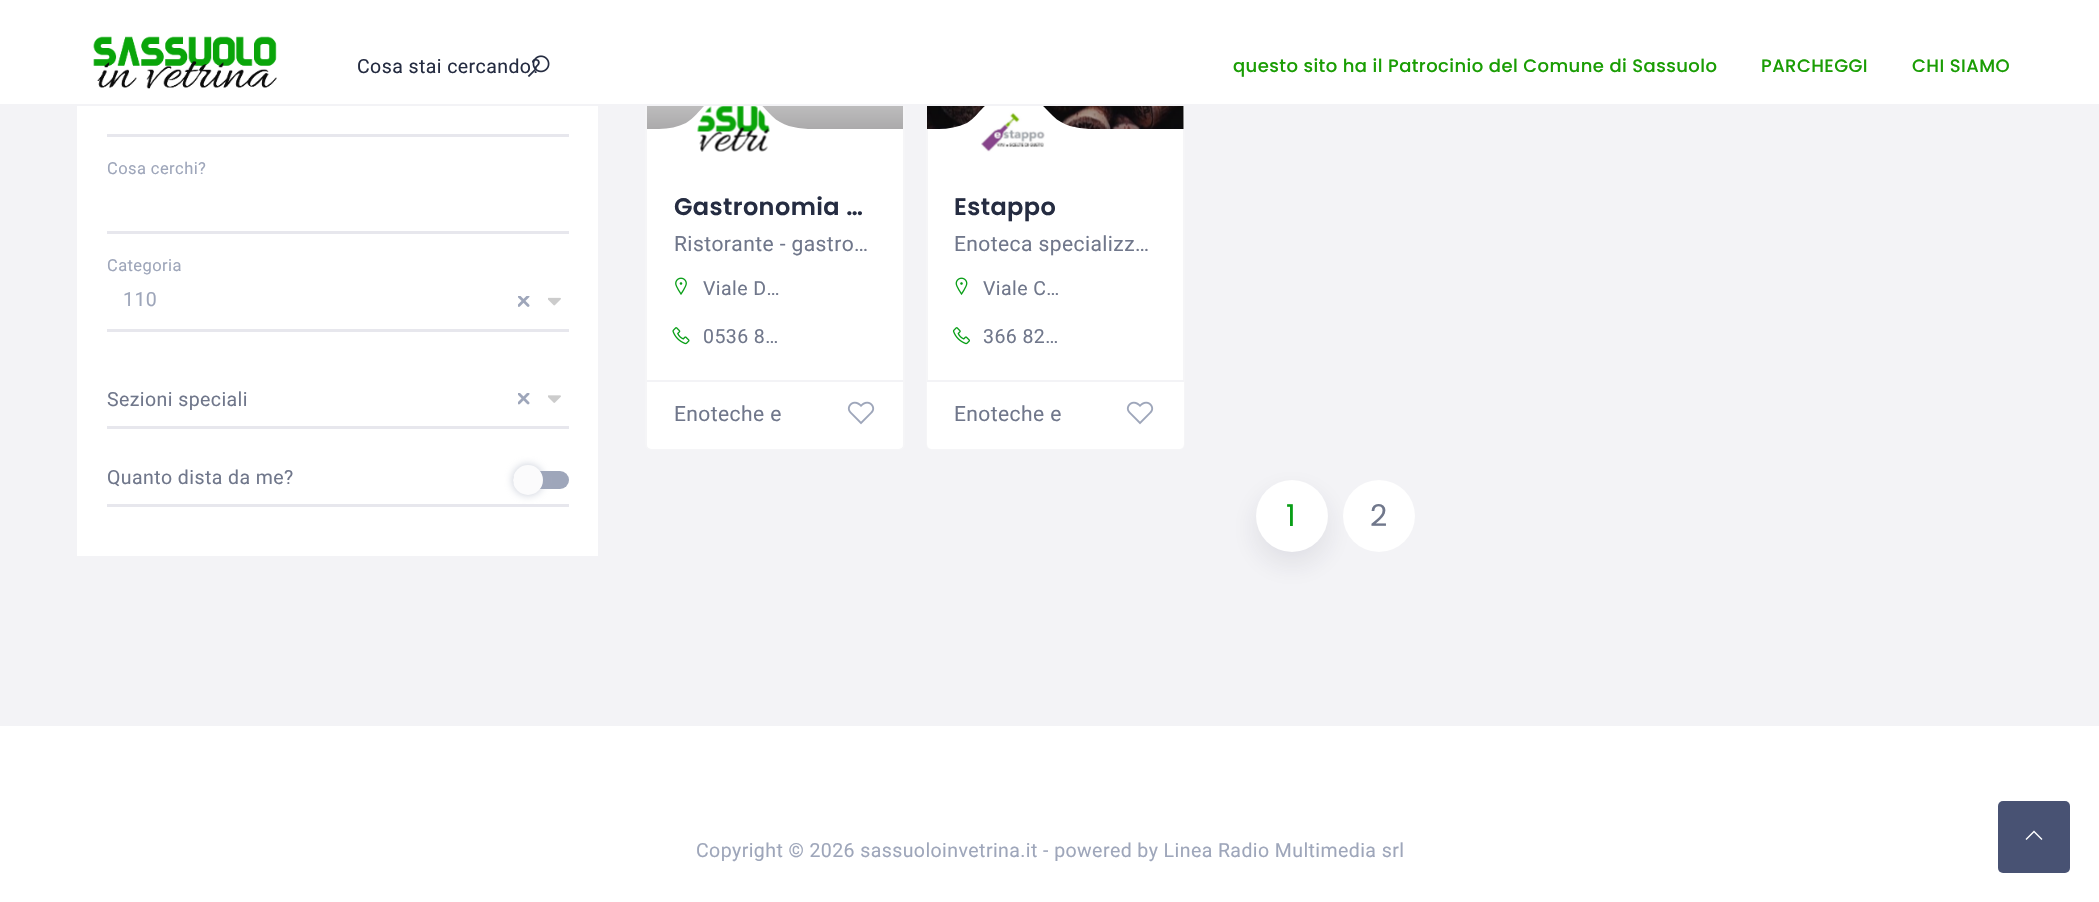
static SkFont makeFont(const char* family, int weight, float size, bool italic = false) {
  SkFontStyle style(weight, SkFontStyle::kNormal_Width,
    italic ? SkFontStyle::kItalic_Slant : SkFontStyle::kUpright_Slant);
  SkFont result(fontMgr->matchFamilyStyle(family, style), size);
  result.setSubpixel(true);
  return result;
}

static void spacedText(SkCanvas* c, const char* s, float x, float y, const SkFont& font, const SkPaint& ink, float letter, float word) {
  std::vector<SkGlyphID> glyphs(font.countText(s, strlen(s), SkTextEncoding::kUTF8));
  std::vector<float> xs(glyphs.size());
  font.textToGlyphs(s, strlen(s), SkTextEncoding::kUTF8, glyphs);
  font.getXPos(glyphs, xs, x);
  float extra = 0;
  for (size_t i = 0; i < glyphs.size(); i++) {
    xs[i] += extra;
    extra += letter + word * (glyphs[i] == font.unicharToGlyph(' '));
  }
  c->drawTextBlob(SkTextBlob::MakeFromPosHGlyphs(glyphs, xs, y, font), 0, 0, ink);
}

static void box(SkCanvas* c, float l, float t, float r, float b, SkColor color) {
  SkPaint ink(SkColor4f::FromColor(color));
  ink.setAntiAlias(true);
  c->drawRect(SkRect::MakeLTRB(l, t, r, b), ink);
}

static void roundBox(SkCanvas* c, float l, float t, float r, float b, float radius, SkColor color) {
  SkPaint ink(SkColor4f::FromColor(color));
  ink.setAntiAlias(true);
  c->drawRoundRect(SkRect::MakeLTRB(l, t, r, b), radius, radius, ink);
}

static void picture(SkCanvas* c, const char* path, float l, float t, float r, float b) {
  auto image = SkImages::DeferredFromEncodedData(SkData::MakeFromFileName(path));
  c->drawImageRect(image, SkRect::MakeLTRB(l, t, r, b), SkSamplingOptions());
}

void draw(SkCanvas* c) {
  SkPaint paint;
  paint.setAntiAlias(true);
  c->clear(0xffffffff);
  box(c, 0, 106, 2099, 726, 0xfff3f3f6);
  box(c, 77, 106, 598, 556, 0xffffffff);
  paint.setStyle(SkPaint::kStroke_Style);
  paint.setStrokeWidth(2);
  paint.setColor(0xfff3f3f6);
  c->drawRect(SkRect::MakeLTRB(76, 45, 599, 557), paint);
  paint.setStyle(SkPaint::kFill_Style);
  paint.setColor(0xffffffff);
  c->drawRoundRect(SkRect::MakeLTRB(646, -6, 904, 449), 4, 4, paint);
  paint.setStyle(SkPaint::kStroke_Style);
  paint.setColor(0xfff5f5f7);
  c->drawRoundRect(SkRect::MakeLTRB(646, -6, 904, 449), 4, 4, paint);
  paint.setStyle(SkPaint::kFill_Style);
  {
    const SkColor colors[] = {0xffececec, 0xffdfdfdf, 0xffabaaab};
    const float stops[] = {0, 0.6f, 1};
    const SkPoint ends[] = {{775, -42}, {775, 129}};
    paint.setShader(SkGradientShader::MakeLinear(ends, colors, stops, 3, SkTileMode::kClamp));
    paint.setAlpha(255);
  }
  c->drawRect(SkRect::MakeLTRB(647, 106, 903, 129), paint);
  c->save();
  c->clipRect(SkRect::MakeLTRB(659, 89, 809, 161));
  paint.setShader(nullptr);
  paint.setColor(0xffffffff);
  c->drawPath(SkPathBuilder().moveTo(772, 116).cubicTo(763, 107, 759, 100, 745, 96).cubicTo(740, 94, 735, 94, 729, 94).cubicTo(720, 95, 712, 99, 705, 105).cubicTo(699, 111, 694, 118, 686, 123).cubicTo(678, 127, 668, 129, 658, 129).lineTo(658, 155).lineTo(808, 155).lineTo(808, 129).cubicTo(795, 128, 782, 126, 772, 116).close().detach(), paint);
  c->restore();
  c->drawRoundRect(SkRect::MakeLTRB(927, -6, 1184, 449), 4, 4, paint);
  paint.setStyle(SkPaint::kStroke_Style);
  paint.setColor(0xfff5f5f7);
  c->drawRoundRect(SkRect::MakeLTRB(927, -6, 1184, 449), 4, 4, paint);
  box(c, 1183, 106, 1184, 129, 0xffffffff);
  picture(c, "img_11.png", 927, 106, 1184, 129);
  box(c, 953, 106, 1184, 129, 0x14121113);
  paint.setStyle(SkPaint::kFill_Style);
  {
    const SkColor colors[] = {0x00121113, 0x0f121113, 0x4d121113};
    const float stops[] = {0, 0.6f, 1};
    const SkPoint ends[] = {{1055, -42}, {1055, 129}};
    paint.setShader(SkGradientShader::MakeLinear(ends, colors, stops, 3, SkTileMode::kClamp));
    paint.setAlpha(255);
  }
  c->drawRect(SkRect::MakeLTRB(927, 106, 1184, 129), paint);
  paint.setShader(nullptr);
  paint.setColor(0xffffffff);
  c->drawPath(SkPathBuilder().moveTo(1053, 116).cubicTo(1044, 107, 1039, 100, 1026, 96).cubicTo(1021, 94, 1015, 94, 1010, 94).cubicTo(1001, 95, 993, 99, 986, 105).cubicTo(979, 111, 975, 118, 967, 123).cubicTo(958, 127, 948, 129, 939, 129).lineTo(939, 155).lineTo(1089, 155).lineTo(1089, 129).cubicTo(1076, 128, 1063, 126, 1053, 116).close().detach(), paint);
  box(c, 75, 0, 1185, 104, 0xffffffff);
  picture(c, "img_01.png", 93, 36, 277, 89);
  SkFont face1 = makeFont("Roboto", 400, 19.5f);
  paint.setColor(0xff252c41);
  spacedText(c, "Cosa stai cercando?", 357, 73, face1, paint, 0.42f, 0);
  picture(c, "img_02.png", 527, 55, 550, 77);
  SkFont face2 = makeFont("Poppins", 500, 18);
  paint.setColor(0xff1a9d04);
  spacedText(c, "questo sito ha il Patrocinio del Comune di Sassuolo", 1233, 72, face2, paint, 0.42f, 0);
  spacedText(c, "PARCHEGGI", 1761, 72, face2, paint, 0.42f, 0);
  spacedText(c, "CHI SIAMO", 1912, 72, face2, paint, 0.42f, 0);
  box(c, 0, 104, 2099, 106, 0xfff3f3f6);
  box(c, 107, 134, 569, 137, 0xffe7e7ed);
  SkFont face3 = makeFont("Roboto", 400, 16.5f);
  paint.setColor(0xff9ea6ba);
  spacedText(c, "Cosa cerchi?", 107, 174, face3, paint, 0.42f, 0);
  box(c, 107, 231, 569, 234, 0xffe7e7ed);
  spacedText(c, "Categoria", 107, 271, face3, paint, 0.42f, 0);
  box(c, 107, 329, 569, 332, 0xffe7e7ed);
  spacedText(c, "110", 123, 306, face1, paint, 0.42f, 0);
  picture(c, "img_03.png", 518, 296, 530, 307);
  picture(c, "img_04.png", 548, 297, 561, 306);
  paint.setColor(0xff70778b);
  spacedText(c, "Sezioni speciali", 107, 406, face1, paint, 0.42f, 0);
  box(c, 107, 426, 569, 429, 0xffe7e7ed);
  picture(c, "img_05.png", 518, 393, 530, 405);
  picture(c, "img_06.png", 548, 395, 561, 403);
  box(c, 107, 504, 569, 507, 0xffe7e7ed);
  spacedText(c, "Quanto dista da me?", 107, 484, face1, paint, 0.42f, 0);
  roundBox(c, 513, 471, 569, 489, 9, 0xff9ea6ba);
  paint.setColor(0x999ea6ba);
  paint.setMaskFilter(SkMaskFilter::MakeBlur(kNormal_SkBlurStyle, 4));
  c->drawRoundRect(SkRect::MakeLTRB(513, 465, 543, 495), 15, 15, paint);
  paint.setMaskFilter(nullptr);
  paint.setColor(0xfffbfbfc);
  c->drawCircle(528, 480, 15, paint);
  picture(c, "img_07.png", 697, 106, 770, 152);
  SkFont face4 = makeFont("Poppins", 600, 24);
  paint.setColor(0xff252c41);
  spacedText(c, "Gastronomia …", 674, 215, face4, paint, 0.42f, 0);
  SkFont face5 = makeFont("Roboto", 400, 21);
  paint.setColor(0xff70778b);
  spacedText(c, "Ristorante - gastro…", 674, 251, face5, paint, 0.42f, 0);
  picture(c, "img_08.png", 675, 277, 687, 295);
  spacedText(c, "Viale D…", 703, 295, face1, paint, 0.42f, 0);
  picture(c, "img_09.png", 672, 327, 690, 345);
  spacedText(c, "0536 8…", 703, 343, face1, paint, 0.42f, 0);
  paint.setColor(0xffffffff);
  c->drawPath(SkPathBuilder().moveTo(647, 380).lineTo(903, 380).lineTo(903, 444).cubicTo(903, 447, 901, 449, 898, 449).lineTo(652, 449).cubicTo(649, 449, 647, 447, 647, 444).close().detach(), paint);
  box(c, 647, 380, 903, 382, 0xfff3f3f6);
  paint.setColor(0xff70778b);
  spacedText(c, "Enoteche e", 674, 421, face5, paint, 0.42f, 0);
  picture(c, "img_10.png", 847, 401, 875, 425);
  picture(c, "img_12.png", 981, 112, 1045, 152);
  paint.setColor(0xff252c41);
  spacedText(c, "Estappo", 954, 215, face4, paint, 0.42f, 0);
  paint.setColor(0xff70778b);
  spacedText(c, "Enoteca specializz…", 954, 251, face5, paint, 0.42f, 0);
  picture(c, "img_13.png", 955, 277, 968, 295);
  spacedText(c, "Viale C…", 983, 295, face1, paint, 0.42f, 0);
  picture(c, "img_14.png", 952, 327, 970, 345);
  spacedText(c, "366 82…", 983, 343, face1, paint, 0.42f, 0);
  paint.setColor(0xffffffff);
  c->drawPath(SkPathBuilder().moveTo(927, 380).lineTo(1184, 380).lineTo(1184, 444).cubicTo(1184, 447, 1182, 449, 1179, 449).lineTo(932, 449).cubicTo(929, 449, 927, 447, 927, 444).close().detach(), paint);
  box(c, 927, 380, 1184, 382, 0xfff3f3f6);
  paint.setColor(0xff70778b);
  spacedText(c, "Enoteche e", 954, 421, face5, paint, 0.42f, 0);
  picture(c, "img_10.png", 1126, 401, 1154, 425);
  paint.setColor(0x1a252c41);
  paint.setMaskFilter(SkMaskFilter::MakeBlur(kNormal_SkBlurStyle, 13.5f));
  c->drawRoundRect(SkRect::MakeLTRB(1256, 492, 1328, 564), 36, 36, paint);
  paint.setMaskFilter(nullptr);
  paint.setColor(0xffffffff);
  c->drawCircle(1292, 516, 36, paint);
  SkFont face6 = makeFont("Poppins", 400, 30);
  paint.setColor(0xff089e16);
  spacedText(c, "1", 1286, 526, face6, paint, 0.42f, 0);
  paint.setColor(0xffffffff);
  c->drawCircle(1379, 516, 36, paint);
  paint.setColor(0xff70778b);
  spacedText(c, "2", 1370, 526, face6, paint, 0.42f, 0);
  paint.setColor(0xff9ea6ba);
  spacedText(c, "Copyright © 2026 sassuoloinvetrina.it - powered by Linea Radio Multimedia srl", 696, 857, face1, paint, 0.42f, 0);
  roundBox(c, 1998, 801, 2070, 873, 5, 0xff485273);
  paint.setColor(0xffffffff);
  c->drawPath(SkPathBuilder().moveTo(2034, 830.5f).lineTo(2042.5f, 839).lineTo(2041.5f, 840).lineTo(2034, 832.5f).lineTo(2026.5f, 840).lineTo(2025.5f, 839).close().detach(), paint);
}
